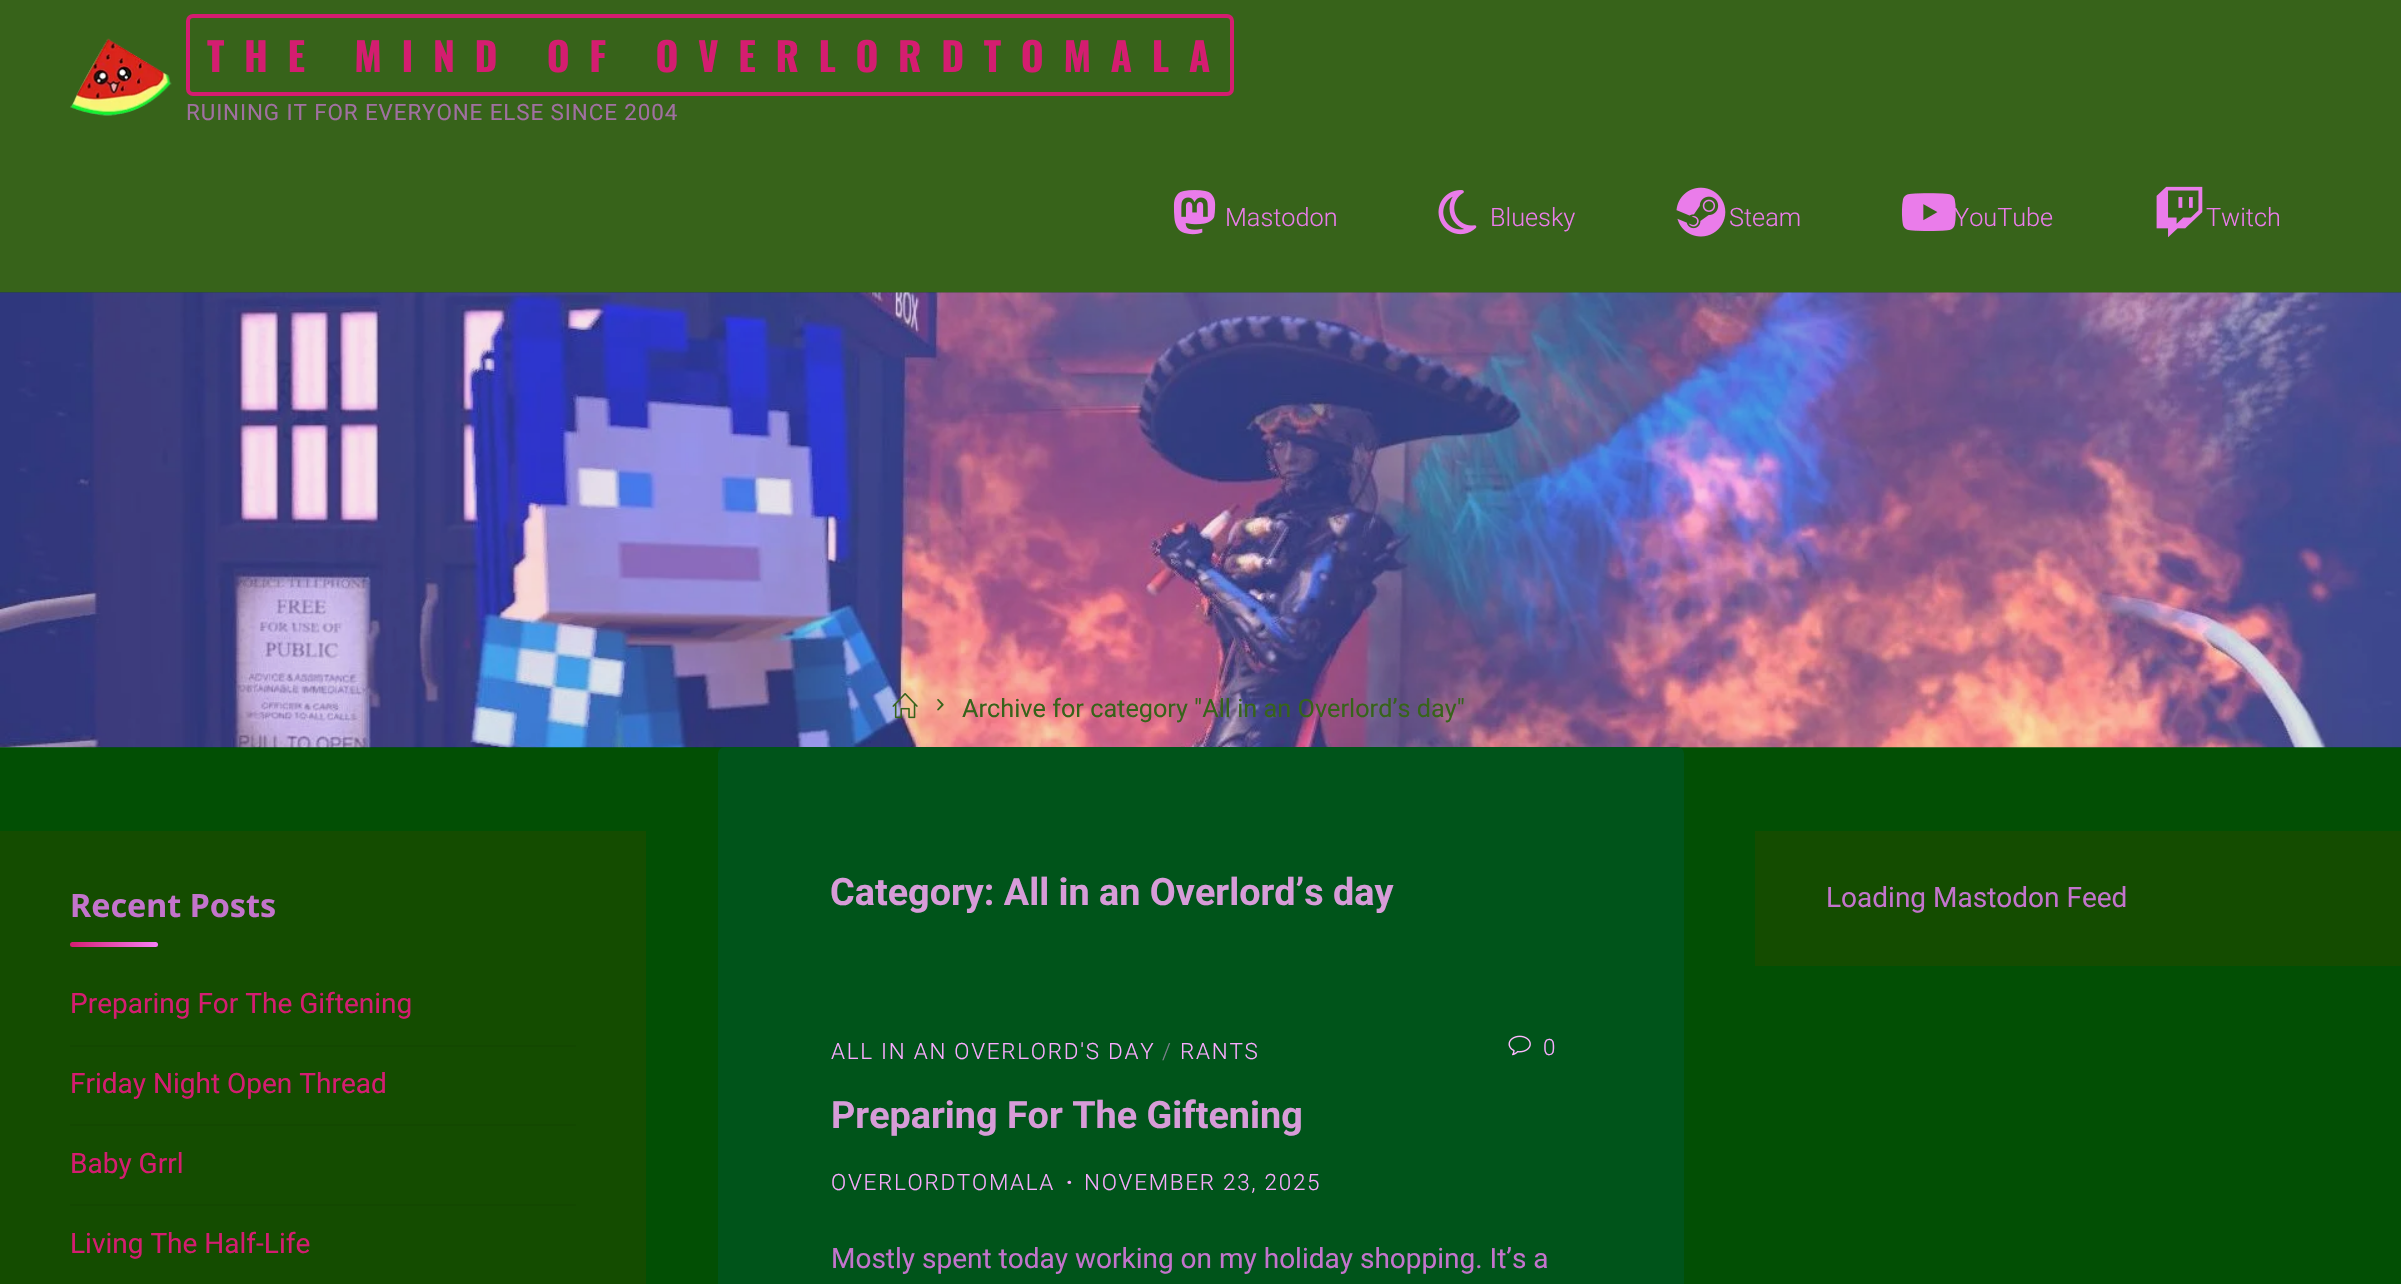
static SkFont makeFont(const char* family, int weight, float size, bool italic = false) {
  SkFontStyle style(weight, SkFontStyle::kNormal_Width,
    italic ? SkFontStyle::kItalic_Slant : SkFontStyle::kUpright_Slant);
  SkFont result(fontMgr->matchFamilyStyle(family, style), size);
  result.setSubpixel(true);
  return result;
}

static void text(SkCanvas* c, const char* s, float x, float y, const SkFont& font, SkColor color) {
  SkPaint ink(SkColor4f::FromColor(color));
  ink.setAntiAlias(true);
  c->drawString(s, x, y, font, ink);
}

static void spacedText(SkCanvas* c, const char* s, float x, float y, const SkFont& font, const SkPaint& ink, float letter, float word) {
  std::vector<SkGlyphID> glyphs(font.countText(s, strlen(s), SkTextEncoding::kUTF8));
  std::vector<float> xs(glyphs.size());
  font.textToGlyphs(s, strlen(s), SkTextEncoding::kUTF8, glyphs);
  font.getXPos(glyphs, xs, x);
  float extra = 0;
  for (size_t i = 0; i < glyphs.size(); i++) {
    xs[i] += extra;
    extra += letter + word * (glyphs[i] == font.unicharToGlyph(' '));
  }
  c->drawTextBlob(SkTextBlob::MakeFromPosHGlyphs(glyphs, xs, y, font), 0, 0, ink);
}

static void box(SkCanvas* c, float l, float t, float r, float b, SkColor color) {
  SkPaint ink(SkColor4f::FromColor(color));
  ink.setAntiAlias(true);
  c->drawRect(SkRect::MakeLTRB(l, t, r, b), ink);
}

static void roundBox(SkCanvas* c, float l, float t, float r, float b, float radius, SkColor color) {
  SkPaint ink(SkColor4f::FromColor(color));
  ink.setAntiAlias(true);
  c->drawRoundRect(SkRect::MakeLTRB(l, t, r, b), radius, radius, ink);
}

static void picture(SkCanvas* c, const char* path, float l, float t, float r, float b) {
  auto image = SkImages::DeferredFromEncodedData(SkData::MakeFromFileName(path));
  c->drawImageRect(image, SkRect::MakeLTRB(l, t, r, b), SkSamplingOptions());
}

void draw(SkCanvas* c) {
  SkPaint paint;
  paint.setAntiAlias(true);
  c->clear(0xff024f04);
  box(c, 0, 0, 2401, 292, 0xff37631a);
  picture(c, "img_01.png", 70, 38, 172, 116);
  paint.setStyle(SkPaint::kStroke_Style);
  paint.setStrokeWidth(4);
  paint.setColor(0xffd41d70);
  c->drawRoundRect(SkRect::MakeLTRB(188, 16, 1232, 94), 5, 5, paint);
  SkFont face1 = makeFont("Oswald", 700, 39.2f);
  paint.setStyle(SkPaint::kFill_Style);
  spacedText(c, "THE MIND OF OVERLORDTOMALA", 207, 72, face1, paint, 19.6f, 0);
  SkFont face2 = makeFont("Roboto", 400, 22.4f);
  paint.setColor(0xffa070a0);
  spacedText(c, "RUINING IT FOR EVERYONE ELSE SINCE 2004", 186, 120, face2, paint, 0.9f, 0);
  picture(c, "img_02.png", 1173, 190, 1216, 235);
  SkFont face3 = makeFont("Roboto", 300, 25.25f);
  text(c, "Mastodon", 1225, 226, face3, 0xffea7cea);
  picture(c, "img_03.png", 1438, 190, 1477, 235);
  text(c, "Bluesky", 1490, 226, face3, 0xffea7cea);
  picture(c, "img_04.png", 1676, 187, 1726, 237);
  text(c, "Steam", 1729, 226, face3, 0xffea7cea);
  picture(c, "img_05.png", 1901, 193, 1956, 231);
  text(c, "YouTube", 1954, 226, face3, 0xffea7cea);
  picture(c, "img_06.png", 2156, 186, 2203, 238);
  text(c, "Twitch", 2206, 226, face3, 0xffea7cea);
  picture(c, "img_07.png", 0, 292, 2401, 748);
  {
    const SkColor colors[] = {0x2bd3548d, 0x2bea695b};
    const float stops[] = {0.28f, 0.75f};
    const SkPoint ends[] = {{0, 520}, {2401, 520}};
    paint.setShader(SkGradientShader::MakeLinear(ends, colors, stops, 2, SkTileMode::kClamp));
    paint.setAlpha(255);
  }
  c->drawRect(SkRect::MakeLTRB(0, 292, 2401, 747), paint);
  picture(c, "img_08.png", 892, 693, 918, 719);
  picture(c, "img_09.png", 937, 699, 944, 711);
  SkFont face4 = makeFont("Roboto", 400, 25.25f);
  text(c, "Archive for category \"All in an Overlord’s day\"", 962, 717, face4, 0xff37631a);
  box(c, 0, 831, 646, 1284, 0xff144c00);
  SkFont face5 = makeFont("Noto Sans", 700, 32.25f);
  text(c, "Recent Posts", 70, 917, face5, 0xffc374cc);
  {
    const SkColor colors[] = {0xffd41d70, 0xfff780f7};
    const float stops[] = {0, 1};
    const SkPoint ends[] = {{70, 944}, {158, 944}};
    paint.setShader(SkGradientShader::MakeLinear(ends, colors, stops, 2, SkTileMode::kClamp));
    paint.setAlpha(255);
  }
  c->drawRoundRect(SkRect::MakeLTRB(70, 942, 158, 947), 2.5f, 2.5f, paint);
  box(c, 70, 1045, 576, 1047, 0xff134800);
  SkFont face6 = makeFont("Roboto", 400, 28);
  text(c, "Preparing For The Giftening", 70, 1013, face6, 0xffd41d70);
  box(c, 70, 1124, 576, 1126, 0xff134800);
  text(c, "Friday Night Open Thread", 70, 1093, face6, 0xffd41d70);
  box(c, 70, 1204, 576, 1206, 0xff134800);
  text(c, "Baby Grrl", 70, 1173, face6, 0xffd41d70);
  text(c, "Living The Half-Life", 70, 1253, face6, 0xffd41d70);
  roundBox(c, 718, 747, 1684, 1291, 7, 0xff00541a);
  SkFont face7 = makeFont("Roboto", 700, 37.75f);
  text(c, "Category: All in an Overlord’s day", 830, 905, face7, 0xffd79cd8);
  SkFont face8 = makeFont("Roboto", 300, 22.4f);
  paint.setShader(nullptr);
  paint.setColor(0xfffaabff);
  spacedText(c, "ALL IN AN OVERLORD'S DAY", 831, 1059, face8, paint, 1.75f, 0);
  paint.setColor(0xff7d808d);
  spacedText(c, "/", 1162, 1059, face8, paint, 1.75f, 0);
  paint.setColor(0xfffaabff);
  spacedText(c, "RANTS", 1180, 1059, face8, paint, 1.75f, 0);
  picture(c, "img_10.png", 1508, 1035, 1531, 1056);
  spacedText(c, "0", 1543, 1055, face8, paint, 1.75f, 0);
  text(c, "Preparing For The Giftening", 831, 1128, face7, 0xffd79cd8);
  spacedText(c, "OVERLORDTOMALA", 831, 1190, face8, paint, 1.75f, 0);
  SkFont face9 = makeFont("Roboto", 700, 22.4f);
  spacedText(c, "·", 1066, 1190, face9, paint, 1.75f, 0);
  spacedText(c, "NOVEMBER 23, 2025", 1084, 1190, face8, paint, 1.75f, 0);
  text(c, "Mostly spent today working on my holiday shopping. It’s a", 831, 1268, face6, 0xffc374cc);
  box(c, 1755, 831, 2401, 966, 0xff144c00);
  text(c, "Loading Mastodon Feed", 1826, 907, face6, 0xffc374cc);
}
